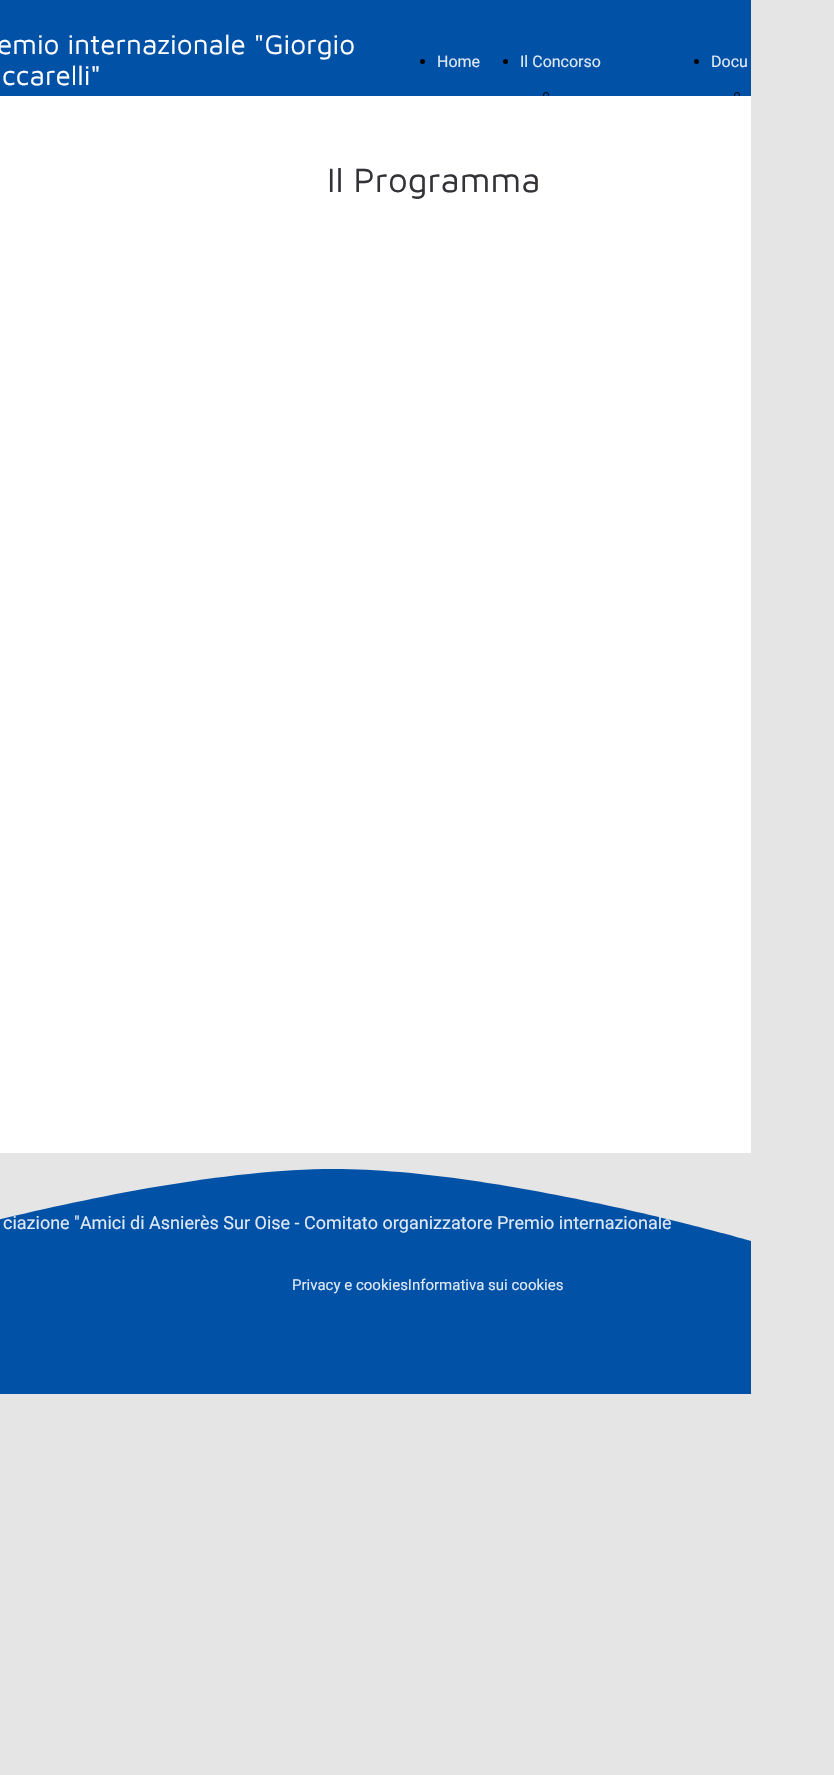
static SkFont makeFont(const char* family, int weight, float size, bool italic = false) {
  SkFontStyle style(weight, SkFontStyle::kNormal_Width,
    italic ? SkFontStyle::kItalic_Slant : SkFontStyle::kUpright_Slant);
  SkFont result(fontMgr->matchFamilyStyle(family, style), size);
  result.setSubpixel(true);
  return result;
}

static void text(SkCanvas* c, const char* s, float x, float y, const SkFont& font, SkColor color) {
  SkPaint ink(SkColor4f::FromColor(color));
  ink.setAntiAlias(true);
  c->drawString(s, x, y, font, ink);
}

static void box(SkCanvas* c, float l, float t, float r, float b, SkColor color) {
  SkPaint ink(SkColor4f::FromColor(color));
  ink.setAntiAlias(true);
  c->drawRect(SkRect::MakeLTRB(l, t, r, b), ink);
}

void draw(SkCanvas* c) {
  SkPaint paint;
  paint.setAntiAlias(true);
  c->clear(0xffe5e5e5);
  box(c, 0, 0, 751, 96, 0xff0151a7);
  SkFont face1 = makeFont("Maven Pro", 400, 27.9f);
  text(c, "emio internazionale \"Giorgio", -3, 54, face1, 0xffffffff);
  text(c, "ccarelli\"", 2, 85, face1, 0xffffffff);
  paint.setColor(0xff000000);
  c->drawCircle(422.5f, 61.5f, 2.5f, paint);
  SkFont face2 = makeFont("Roboto", 400, 16);
  text(c, "Home", 437, 67, face2, 0xffdfe9f4);
  c->drawCircle(505.5f, 61.5f, 2.5f, paint);
  text(c, "Il Concorso", 520, 67, face2, 0xffdfe9f4);
  paint.setStyle(SkPaint::kStroke_Style);
  paint.setStrokeWidth(1);
  c->drawCircle(546, 95, 2.5f, paint);
  paint.setStyle(SkPaint::kFill_Style);
  c->drawCircle(696.5f, 61.5f, 2.5f, paint);
  text(c, "Docu", 711, 67, face2, 0xffdfe9f4);
  paint.setStyle(SkPaint::kStroke_Style);
  c->drawCircle(737, 95, 2.5f, paint);
  box(c, 0, 96, 751, 1153, 0xffffffff);
  SkFont face3 = makeFont("Maven Pro", 400, 34.75f);
  text(c, "Il Programma", 327, 192, face3, 0xff343237);
  paint.setStyle(SkPaint::kFill_Style);
  paint.setColor(0xff0151a7);
  c->drawPath(SkPathBuilder().moveTo(751, 1394).lineTo(-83, 1394).lineTo(-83, 1241).cubicTo(-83, 1241, 166, 1169, 334, 1169).cubicTo(502, 1169, 751, 1241, 751, 1241).close().detach(), paint);
  SkFont face4 = makeFont("Roboto", 400, 18);
  text(c, "ciazione \"Amici di Asnierès Sur Oise - Comitato organizzatore Premio internazionale", 3, 1229, face4, 0xffdfe9f4);
  SkFont face5 = makeFont("Roboto", 400, 15);
  text(c, "Privacy e cookiesInformativa sui cookies", 292, 1290, face5, 0xffdfe9f4);
}
